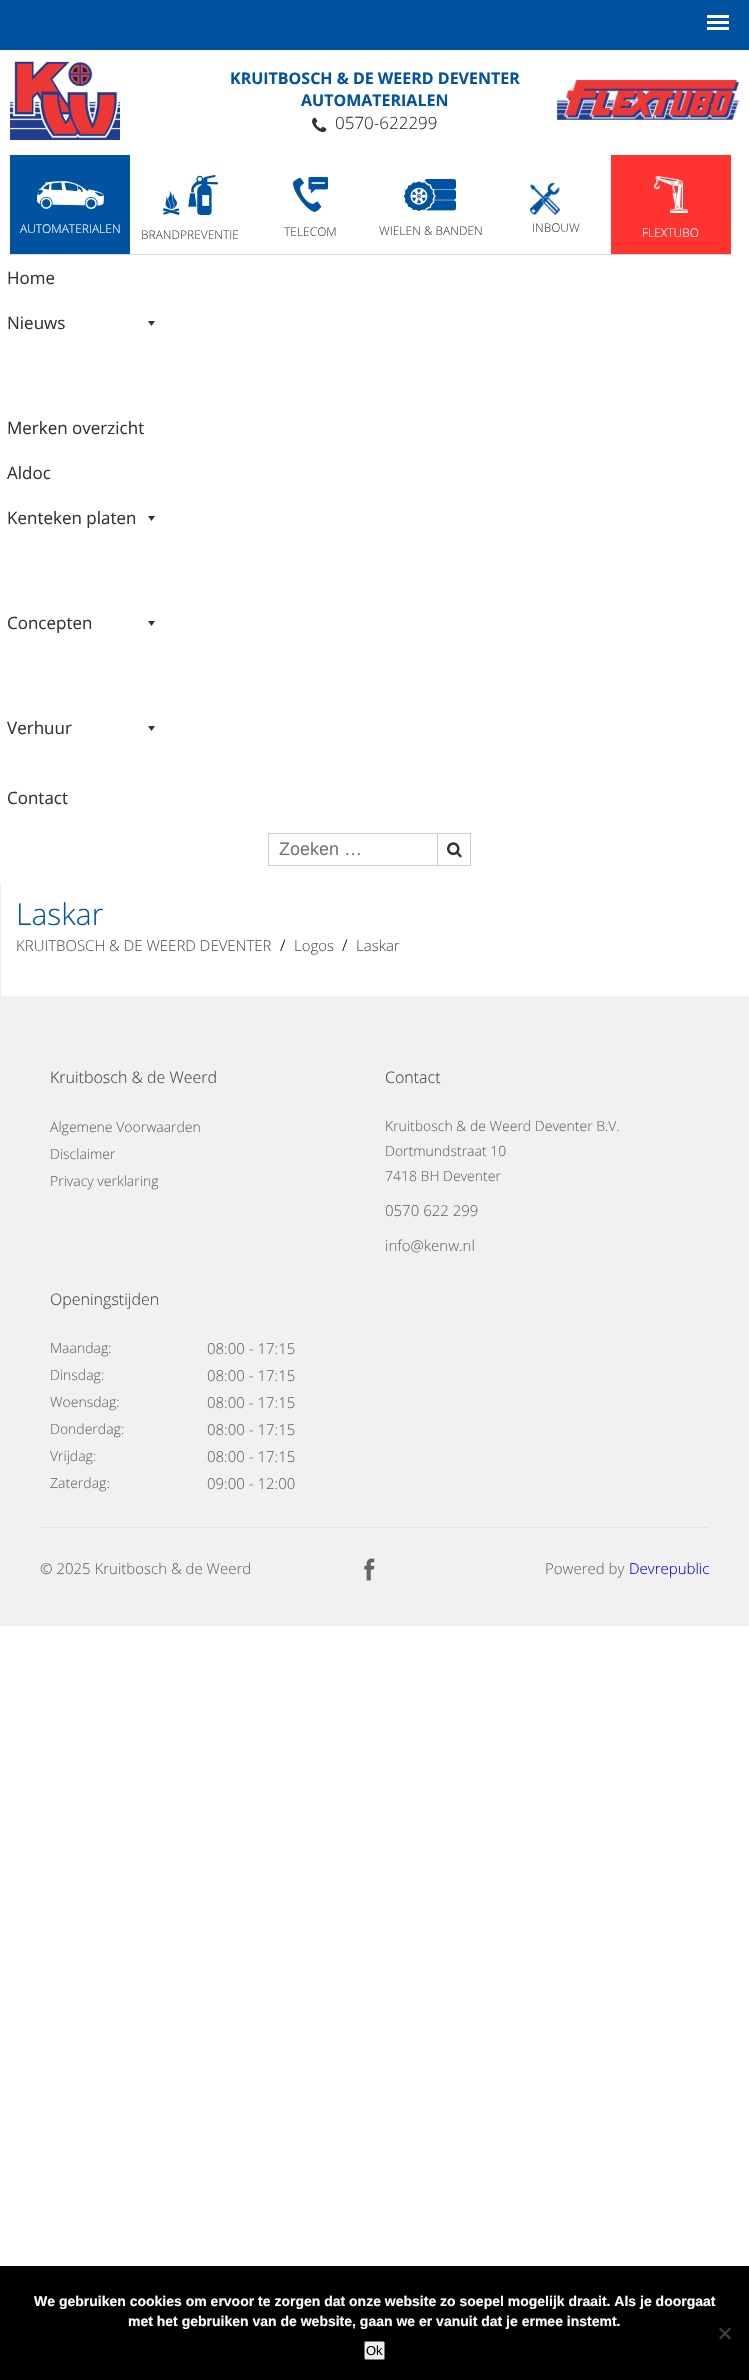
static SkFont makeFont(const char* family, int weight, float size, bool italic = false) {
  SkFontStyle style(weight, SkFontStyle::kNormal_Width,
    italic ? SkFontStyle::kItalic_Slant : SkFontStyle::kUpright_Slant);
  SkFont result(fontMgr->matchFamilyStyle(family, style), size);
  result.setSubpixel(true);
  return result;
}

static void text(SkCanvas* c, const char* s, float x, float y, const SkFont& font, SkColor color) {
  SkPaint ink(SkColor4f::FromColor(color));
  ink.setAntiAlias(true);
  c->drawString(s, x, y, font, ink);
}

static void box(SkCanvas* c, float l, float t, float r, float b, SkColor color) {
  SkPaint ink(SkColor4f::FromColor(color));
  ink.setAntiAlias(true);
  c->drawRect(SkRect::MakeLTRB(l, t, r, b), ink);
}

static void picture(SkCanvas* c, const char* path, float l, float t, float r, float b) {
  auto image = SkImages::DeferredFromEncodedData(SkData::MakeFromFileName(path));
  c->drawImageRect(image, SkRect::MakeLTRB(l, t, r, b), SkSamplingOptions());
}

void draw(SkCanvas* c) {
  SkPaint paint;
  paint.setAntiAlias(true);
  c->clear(0xffffffff);
  box(c, 0, 0, 749, 50, 0xff0053a0);
  box(c, 707, 15, 729, 18, 0xffffffff);
  box(c, 707, 21, 729, 24, 0xffffffff);
  box(c, 707, 27, 729, 30, 0xffffffff);
  picture(c, "img_01.png", 10, 61, 120, 140);
  SkFont face1 = makeFont("Open Sans", 700, 16);
  text(c, "KRUITBOSCH & DE WEERD DEVENTER", 230, 84, face1, 0xff0053a0);
  text(c, "AUTOMATERIALEN", 301, 106, face1, 0xff0053a0);
  picture(c, "img_02.png", 312, 117, 327, 133);
  SkFont face2 = makeFont("Open Sans", 300, 17);
  text(c, "0570-622299", 335, 129, face2, 0xff333333);
  picture(c, "img_03.png", 557, 80, 739, 120);
  box(c, 10, 155, 130, 254, 0xff0053a0);
  box(c, 10, 254, 731, 255, 0xffdddddd);
  picture(c, "img_04.png", 36, 181, 104, 209);
  SkFont face3 = makeFont("Open Sans", 300, 12);
  text(c, "AUTOMATERIALEN", 20, 233, face3, 0xffffffff);
  picture(c, "img_05.png", 163, 175, 218, 215);
  text(c, "BRANDPREVENTIE", 141, 239, face3, 0xff444444);
  picture(c, "img_06.png", 293, 177, 328, 212);
  text(c, "TELECOM", 284, 236, face3, 0xff444444);
  picture(c, "img_07.png", 404, 179, 456, 211);
  text(c, "WIELEN & BANDEN", 379, 235, face3, 0xff444444);
  picture(c, "img_08.png", 530, 183, 560, 215);
  text(c, "INBOUW", 532, 232, face3, 0xff444444);
  box(c, 611, 155, 731, 254, 0xffff332f);
  picture(c, "img_09.png", 654, 176, 688, 213);
  text(c, "FLEXTUBO", 642, 237, face3, 0xffffffff);
  SkFont face4 = makeFont("Open Sans", 400, 17);
  text(c, "Home", 7, 284, face4, 0xff333333);
  text(c, "Nieuws", 7, 329, face4, 0xff333333);
  paint.setColor(0xff333333);
  c->drawPath(SkPathBuilder().moveTo(155, 321).lineTo(151.5f, 326).lineTo(148, 321).close().detach(), paint);
  text(c, "Merken overzicht", 7, 434, face4, 0xff333333);
  text(c, "Aldoc", 7, 479, face4, 0xff333333);
  text(c, "Kenteken platen", 7, 524, face4, 0xff333333);
  c->drawPath(SkPathBuilder().moveTo(155, 516).lineTo(151.5f, 521).lineTo(148, 516).close().detach(), paint);
  text(c, "Concepten", 7, 629, face4, 0xff333333);
  c->drawPath(SkPathBuilder().moveTo(155, 621).lineTo(151.5f, 626).lineTo(148, 621).close().detach(), paint);
  text(c, "Verhuur", 7, 734, face4, 0xff333333);
  c->drawPath(SkPathBuilder().moveTo(155, 726).lineTo(151.5f, 731).lineTo(148, 726).close().detach(), paint);
  text(c, "Contact", 7, 804, face4, 0xff333333);
  paint.setStyle(SkPaint::kStroke_Style);
  paint.setStrokeWidth(1);
  paint.setColor(0xffcccccc);
  c->drawRect(SkRect::MakeLTRB(268.5f, 833.5f, 437.5f, 865.5f), paint);
  SkFont face5 = makeFont("Liberation Sans", 400, 18);
  text(c, "Zoeken …", 279, 855, face5, 0xff757575);
  picture(c, "img_10.png", 447, 842, 462, 858);
  box(c, 438, 833, 471, 834, 0xffcccccc);
  box(c, 470, 833, 471, 866, 0xffcccccc);
  box(c, 438, 865, 471, 866, 0xffcccccc);
  box(c, 0, 883, 1, 996, 0xffeeeeee);
  SkFont face6 = makeFont("Open Sans", 300, 30);
  text(c, "Laskar", 16, 925, face6, 0xff0053a0);
  SkFont face7 = makeFont("Open Sans", 300, 15);
  text(c, "KRUITBOSCH & DE WEERD DEVENTER", 16, 951, face7, 0xff555555);
  SkFont face8 = makeFont("Open Sans", 300, 16);
  text(c, "/", 280, 951, face8, 0xff000000);
  text(c, "Logos", 294, 951, face7, 0xff555555);
  text(c, "/", 342, 951, face8, 0xff000000);
  text(c, "Laskar", 356, 951, face7, 0xff555555);
  box(c, 0, 996, 749, 1626, 0xfff1f1f1);
  text(c, "Kruitbosch & de Weerd", 50, 1083, face8, 0xff444444);
  SkFont face9 = makeFont("Open Sans", 300, 14);
  text(c, "Algemene Voorwaarden", 50, 1132, face9, 0xff666666);
  text(c, "Disclaimer", 50, 1159, face9, 0xff666666);
  text(c, "Privacy verklaring", 50, 1186, face9, 0xff666666);
  text(c, "Contact", 385, 1083, face8, 0xff444444);
  text(c, "Kruitbosch & de Weerd Deventer B.V.", 385, 1131, face9, 0xff666666);
  text(c, "Dortmundstraat 10", 385, 1156, face9, 0xff666666);
  text(c, "7418 BH Deventer", 385, 1181, face9, 0xff666666);
  text(c, "0570 622 299", 385, 1216, face7, 0xff666666);
  text(c, "info@kenw.nl", 385, 1251, face7, 0xff666666);
  text(c, "Openingstijden", 50, 1305, face8, 0xff444444);
  text(c, "Maandag:", 50, 1353, face9, 0xff666666);
  text(c, "08:00 - 17:15", 207, 1354, face7, 0xff666666);
  text(c, "Dinsdag:", 50, 1380, face9, 0xff666666);
  text(c, "08:00 - 17:15", 207, 1381, face7, 0xff666666);
  text(c, "Woensdag:", 50, 1407, face9, 0xff666666);
  text(c, "08:00 - 17:15", 207, 1408, face7, 0xff666666);
  text(c, "Donderdag:", 50, 1434, face9, 0xff666666);
  text(c, "08:00 - 17:15", 207, 1435, face7, 0xff666666);
  text(c, "Vrijdag:", 50, 1461, face9, 0xff666666);
  text(c, "08:00 - 17:15", 207, 1462, face7, 0xff666666);
  text(c, "Zaterdag:", 50, 1488, face9, 0xff666666);
  text(c, "09:00 - 12:00", 207, 1489, face7, 0xff666666);
  box(c, 40, 1527, 709, 1528, 0xffe2e2e2);
  text(c, "© 2025 Kruitbosch & de Weerd", 40, 1574, face7, 0xff666666);
  picture(c, "img_11.png", 364, 1558, 375, 1581);
  text(c, "Powered by", 545, 1574, face7, 0xff666666);
  text(c, "Devrepublic", 629, 1574, face7, 0xff0000ee);
  box(c, 0, 2266, 749, 2380, 0xff000000);
  SkFont face10 = makeFont("Liberation Sans", 700, 14);
  text(c, "We gebruiken cookies om ervoor te zorgen dat onze website zo soepel mogelijk draait. Als je doorgaat", 34, 2306, face10, 0xffffffff);
  text(c, "met het gebruiken van de website, gaan we er vanuit dat je ermee instemt.", 128, 2326, face10, 0xffffffff);
  paint.setStyle(SkPaint::kFill_Style);
  paint.setColor(0xff404040);
  c->drawPath(SkPathBuilder().moveTo(729.5f, 2327.5f).lineTo(731, 2329).lineTo(720.5f, 2339.5f).lineTo(719, 2338).close().detach(), paint);
  c->drawPath(SkPathBuilder().moveTo(719, 2329).lineTo(720.5f, 2327.5f).lineTo(731, 2338).lineTo(729.5f, 2339.5f).close().detach(), paint);
  paint.setColor(0xffefefef);
  c->drawRoundRect(SkRect::MakeLTRB(364.5f, 2341.5f, 384.5f, 2359.5f), 1.5f, 1.5f, paint);
  paint.setStyle(SkPaint::kStroke_Style);
  paint.setColor(0xff767676);
  c->drawRoundRect(SkRect::MakeLTRB(364.5f, 2341.5f, 384.5f, 2359.5f), 1.5f, 1.5f, paint);
  SkFont face11 = makeFont("Liberation Sans", 400, 13);
  text(c, "Ok", 366, 2355, face11, 0xff000000);
}
